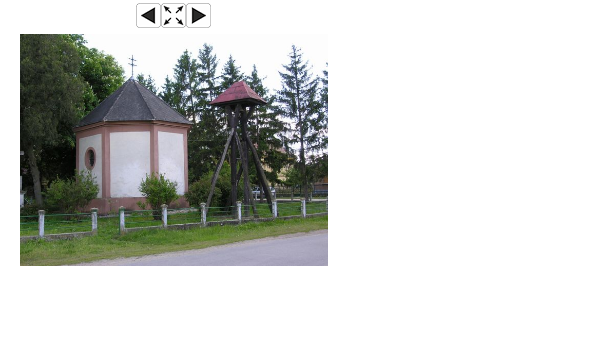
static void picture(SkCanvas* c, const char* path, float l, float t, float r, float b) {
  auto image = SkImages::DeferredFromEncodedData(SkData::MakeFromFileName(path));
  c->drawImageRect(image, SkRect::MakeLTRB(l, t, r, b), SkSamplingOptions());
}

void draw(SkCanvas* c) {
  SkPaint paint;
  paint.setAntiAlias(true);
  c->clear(0xffffffff);
  picture(c, "img_01.png", 136, 3, 161, 28);
  picture(c, "img_02.png", 161, 3, 186, 28);
  picture(c, "img_03.png", 186, 3, 211, 28);
  picture(c, "img_04.png", 20, 34, 328, 266);
}
